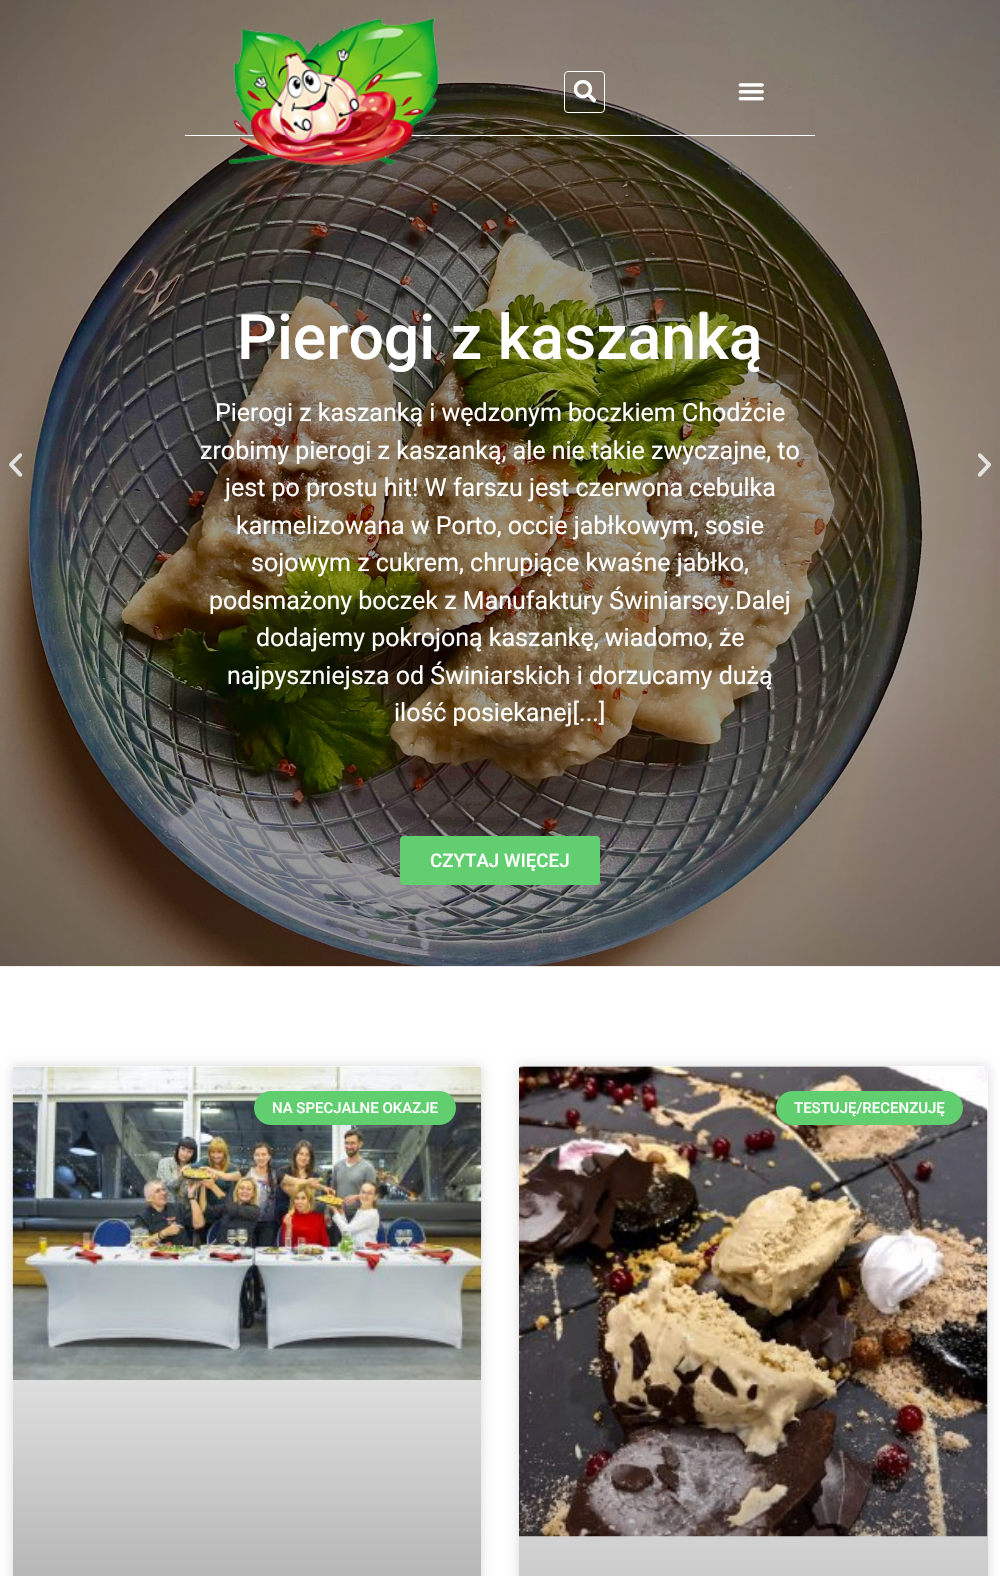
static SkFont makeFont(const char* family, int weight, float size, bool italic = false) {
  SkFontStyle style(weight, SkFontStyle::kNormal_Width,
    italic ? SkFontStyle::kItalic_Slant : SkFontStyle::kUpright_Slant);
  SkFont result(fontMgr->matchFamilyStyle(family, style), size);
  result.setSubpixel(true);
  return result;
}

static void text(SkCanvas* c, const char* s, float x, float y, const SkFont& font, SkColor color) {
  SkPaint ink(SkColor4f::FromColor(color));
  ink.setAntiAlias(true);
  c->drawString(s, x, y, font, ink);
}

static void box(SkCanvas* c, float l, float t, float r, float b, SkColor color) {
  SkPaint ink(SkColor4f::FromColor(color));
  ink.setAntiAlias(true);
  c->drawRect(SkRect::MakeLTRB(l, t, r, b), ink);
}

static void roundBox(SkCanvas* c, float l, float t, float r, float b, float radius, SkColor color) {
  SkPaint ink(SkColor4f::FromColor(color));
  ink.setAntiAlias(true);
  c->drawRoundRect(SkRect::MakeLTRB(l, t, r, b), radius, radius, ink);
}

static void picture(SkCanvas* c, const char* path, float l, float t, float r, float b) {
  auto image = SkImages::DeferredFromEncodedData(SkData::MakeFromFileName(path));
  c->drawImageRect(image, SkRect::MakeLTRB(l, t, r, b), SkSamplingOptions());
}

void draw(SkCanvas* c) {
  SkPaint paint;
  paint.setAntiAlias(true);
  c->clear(0xffffffff);
  picture(c, "img_05.png", 0, 0, 1000, 967);
  box(c, 185, 135, 815, 136, 0xffffffff);
  picture(c, "img_01.png", 228, 17, 439, 167);
  box(c, 564, 71, 605, 106, 0x0d000000);
  paint.setStyle(SkPaint::kStroke_Style);
  paint.setStrokeWidth(1);
  paint.setColor(0xffffffff);
  c->drawRoundRect(SkRect::MakeLTRB(564.5f, 71.5f, 604.5f, 112.5f), 3.5f, 3.5f, paint);
  picture(c, "img_02.png", 574, 80, 596, 103);
  picture(c, "img_03.png", 738, 83, 764, 101);
  picture(c, "img_04.png", 9, 453, 23, 477);
  SkFont face1 = makeFont("Roboto", 500, 62.5f);
  text(c, "Pierogi z kaszanką", 237, 359, face1, 0xffffffff);
  SkFont face2 = makeFont("Roboto", 400, 25);
  text(c, "Pierogi z kaszanką i wędzonym boczkiem Chodźcie", 215, 421, face2, 0xffffffff);
  text(c, "zrobimy pierogi z kaszanką, ale nie takie zwyczajne, to", 200, 459, face2, 0xffffffff);
  text(c, "jest po prostu hit! W farszu jest czerwona cebulka", 225, 496, face2, 0xffffffff);
  text(c, "karmelizowana w Porto, occie jabłkowym, sosie", 236, 534, face2, 0xffffffff);
  text(c, "sojowym z cukrem, chrupiące kwaśne jabłko,", 251, 571, face2, 0xffffffff);
  text(c, "podsmażony boczek z Manufaktury Świniarscy.Dalej", 209, 609, face2, 0xffffffff);
  text(c, "dodajemy pokrojoną kaszankę, wiadomo, że", 256, 646, face2, 0xffffffff);
  text(c, "najpyszniejsza od Świniarskich i dorzucamy dużą", 227, 684, face2, 0xffffffff);
  text(c, "ilość posiekanej[...]", 394, 721, face2, 0xffffffff);
  roundBox(c, 400, 836, 600, 885, 4, 0xff61ce70);
  SkFont face3 = makeFont("Roboto", 500, 18.75f);
  text(c, "CZYTAJ WIĘCEJ", 430, 867, face3, 0xffffffff);
  picture(c, "img_06.png", 977, 453, 991, 477);
  paint.setStyle(SkPaint::kFill_Style);
  paint.setColor(0x26000000);
  paint.setMaskFilter(SkMaskFilter::MakeBlur(kNormal_SkBlurStyle, 6));
  c->drawRoundRect(SkRect::MakeLTRB(13, 1066, 481, 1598), 4, 4, paint);
  paint.setMaskFilter(nullptr);
  roundBox(c, 13, 1066, 481, 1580, 4, 0xffffffff);
  picture(c, "img_07.png", 12, 1066, 482, 1380);
  {
    const SkColor colors[] = {0x59000000, 0x00000000};
    const float stops[] = {0, 0.75f};
    const SkPoint ends[] = {{247, 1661}, {247, 1066}};
    paint.setShader(SkGradientShader::MakeLinear(ends, colors, stops, 2, SkTileMode::kClamp));
    paint.setAlpha(255);
  }
  c->drawRect(SkRect::MakeLTRB(13, 1242, 481, 1576), paint);
  roundBox(c, 254, 1091, 456, 1125, 17, 0xff61ce70);
  SkFont face4 = makeFont("Roboto", 500, 15);
  text(c, "NA SPECJALNE OKAZJE", 272, 1113, face4, 0xffffffff);
  paint.setShader(nullptr);
  paint.setColor(0x26000000);
  paint.setMaskFilter(SkMaskFilter::MakeBlur(kNormal_SkBlurStyle, 6));
  c->drawRoundRect(SkRect::MakeLTRB(519, 1066, 988, 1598), 4, 4, paint);
  paint.setMaskFilter(nullptr);
  roundBox(c, 519, 1066, 988, 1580, 4, 0xffffffff);
  picture(c, "img_08.png", 519, 1066, 988, 1537);
  {
    const SkColor colors[] = {0x59000000, 0x00000000};
    const float stops[] = {0, 0.75f};
    const SkPoint ends[] = {{753, 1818}, {753, 1066}};
    paint.setShader(SkGradientShader::MakeLinear(ends, colors, stops, 2, SkTileMode::kClamp));
    paint.setAlpha(255);
  }
  c->drawRect(SkRect::MakeLTRB(519, 1289, 988, 1576), paint);
  roundBox(c, 776, 1091, 963, 1125, 17, 0xff61ce70);
  text(c, "TESTUJĘ/RECENZUJĘ", 794, 1113, face4, 0xffffffff);
}
